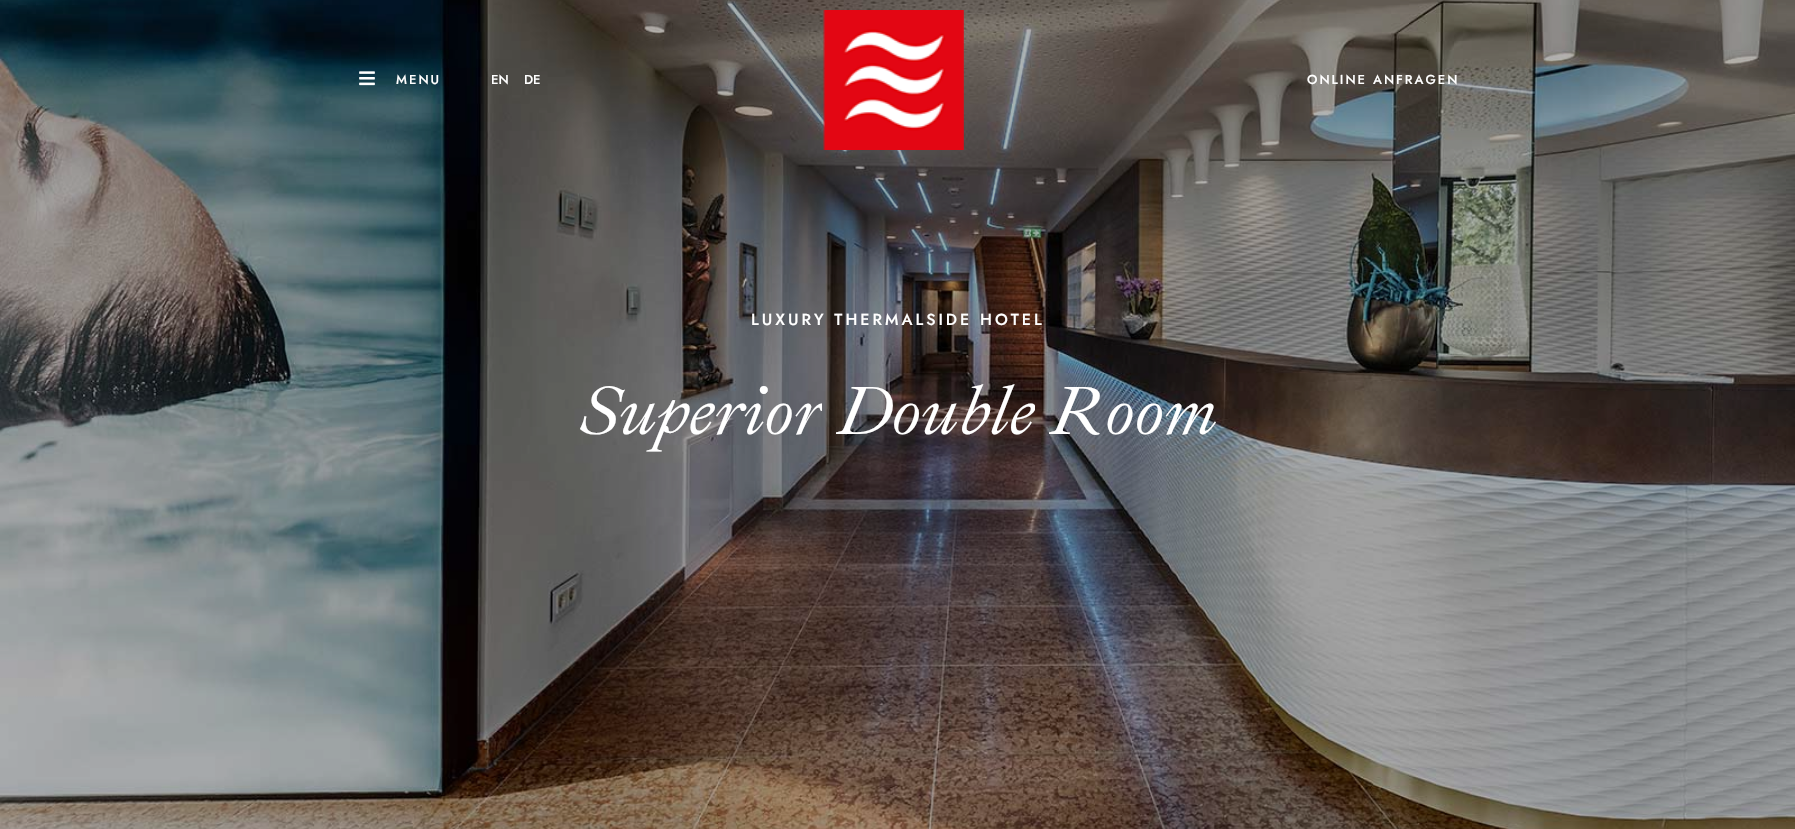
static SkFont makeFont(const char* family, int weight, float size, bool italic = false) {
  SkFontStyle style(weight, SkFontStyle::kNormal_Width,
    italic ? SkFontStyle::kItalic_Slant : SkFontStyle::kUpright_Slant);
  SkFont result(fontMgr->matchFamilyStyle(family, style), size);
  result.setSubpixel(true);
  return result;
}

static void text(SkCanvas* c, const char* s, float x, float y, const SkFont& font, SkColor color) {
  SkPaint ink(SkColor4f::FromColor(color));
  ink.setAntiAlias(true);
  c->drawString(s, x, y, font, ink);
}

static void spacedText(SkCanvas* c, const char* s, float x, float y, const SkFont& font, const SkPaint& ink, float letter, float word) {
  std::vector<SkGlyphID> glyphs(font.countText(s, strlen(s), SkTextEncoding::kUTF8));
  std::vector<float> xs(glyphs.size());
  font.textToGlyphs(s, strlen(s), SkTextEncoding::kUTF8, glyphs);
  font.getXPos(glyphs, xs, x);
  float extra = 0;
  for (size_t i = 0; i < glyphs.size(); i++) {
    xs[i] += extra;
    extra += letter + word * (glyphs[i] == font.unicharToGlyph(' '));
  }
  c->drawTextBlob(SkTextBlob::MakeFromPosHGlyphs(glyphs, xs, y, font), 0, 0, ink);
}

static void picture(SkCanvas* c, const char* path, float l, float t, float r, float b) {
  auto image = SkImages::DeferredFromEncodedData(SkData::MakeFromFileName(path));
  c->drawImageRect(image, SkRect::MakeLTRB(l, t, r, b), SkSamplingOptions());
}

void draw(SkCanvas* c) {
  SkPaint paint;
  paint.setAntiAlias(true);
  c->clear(0xffffffff);
  picture(c, "img_03.png", 0, 0, 1795, 829);
  picture(c, "img_01.png", 359, 71, 375, 86);
  SkFont face1 = makeFont("Jost", 500, 13);
  paint.setColor(0xffffffff);
  spacedText(c, "MENU", 396, 84, face1, paint, 2, 0);
  text(c, "EN", 491, 84, face1, 0xffffffff);
  text(c, "DE", 524, 84, face1, 0xffffffff);
  picture(c, "img_02.png", 823, 10, 964, 150);
  spacedText(c, "ONLINE ANFRAGEN", 1307, 84, face1, paint, 2, 0);
  SkFont face2 = makeFont("Jost", 500, 16);
  spacedText(c, "LUXURY THERMALSIDE HOTEL", 751, 325, face2, paint, 3, 0);
  c->save();
  c->clipRect(SkRect::MakeLTRB(579, 369, 822, 453));
  SkFont face3 = makeFont("Ibarra Real Nova", 400, 70, true);
  spacedText(c, "Superior", 579, 434, face3, paint, -1, 0);
  c->restore();
  c->save();
  c->clipRect(SkRect::MakeLTRB(836, 369, 1035, 453));
  spacedText(c, "Double", 836, 434, face3, paint, -1, 0);
  c->restore();
  c->save();
  c->clipRect(SkRect::MakeLTRB(1049, 369, 1216, 453));
  spacedText(c, "Room", 1049, 434, face3, paint, -1, 0);
  c->restore();
}
